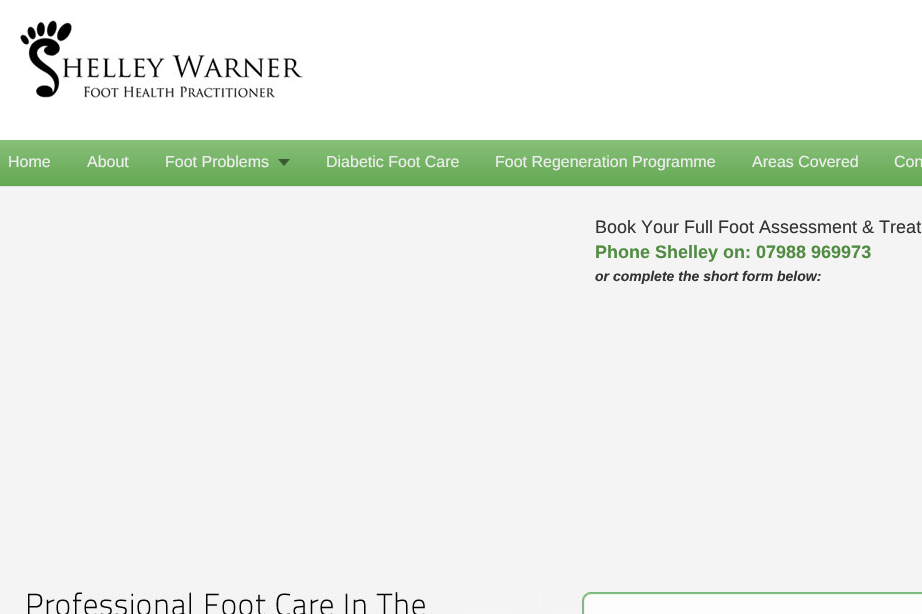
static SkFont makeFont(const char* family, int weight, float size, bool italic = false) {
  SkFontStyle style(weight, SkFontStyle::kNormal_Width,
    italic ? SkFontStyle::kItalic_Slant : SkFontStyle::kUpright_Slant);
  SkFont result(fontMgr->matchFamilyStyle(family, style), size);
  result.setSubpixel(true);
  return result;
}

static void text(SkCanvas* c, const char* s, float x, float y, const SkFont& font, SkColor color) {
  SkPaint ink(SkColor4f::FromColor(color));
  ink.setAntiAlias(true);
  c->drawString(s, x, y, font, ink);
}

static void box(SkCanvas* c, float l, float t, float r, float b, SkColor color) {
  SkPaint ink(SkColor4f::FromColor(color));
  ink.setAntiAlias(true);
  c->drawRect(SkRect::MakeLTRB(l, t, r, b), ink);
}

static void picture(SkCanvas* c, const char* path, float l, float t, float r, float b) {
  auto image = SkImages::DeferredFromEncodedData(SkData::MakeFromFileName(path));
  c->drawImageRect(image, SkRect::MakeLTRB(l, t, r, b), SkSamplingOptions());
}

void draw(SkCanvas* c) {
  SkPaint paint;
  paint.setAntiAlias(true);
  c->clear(0xffffffff);
  picture(c, "img_01.png", 20, 20, 303, 98);
  picture(c, "img_02.png", 0, 140, 922, 186);
  SkFont face1 = makeFont("Liberation Sans", 400, 16);
  text(c, "Home", 8, 167, face1, 0xffeeeeee);
  text(c, "About", 87, 167, face1, 0xffeeeeee);
  picture(c, "img_03.png", 278, 159, 290, 166);
  text(c, "Foot Problems", 165, 167, face1, 0xffeeeeee);
  text(c, "Diabetic Foot Care", 326, 167, face1, 0xffeeeeee);
  text(c, "Foot Regeneration Programme", 495, 167, face1, 0xffeeeeee);
  text(c, "Areas Covered", 752, 167, face1, 0xffeeeeee);
  text(c, "Con", 894, 167, face1, 0xffeeeeee);
  box(c, 0, 187, 922, 614, 0xfff4f4f4);
  picture(c, "img_04.png", 24, 592, 922, 614);
  box(c, 0, 186, 922, 187, 0xffe4e4e4);
  SkFont face2 = makeFont("Liberation Sans", 400, 18);
  text(c, "Book Your Full Foot Assessment & Treat", 595, 233, face2, 0xff333333);
  SkFont face3 = makeFont("Liberation Sans", 700, 18);
  text(c, "Phone Shelley on: 07988 969973", 595, 258, face3, 0xff528c43);
  SkFont face4 = makeFont("Liberation Sans", 700, 14, true);
  text(c, "or complete the short form below:", 595, 281, face4, 0xff333333);
}
